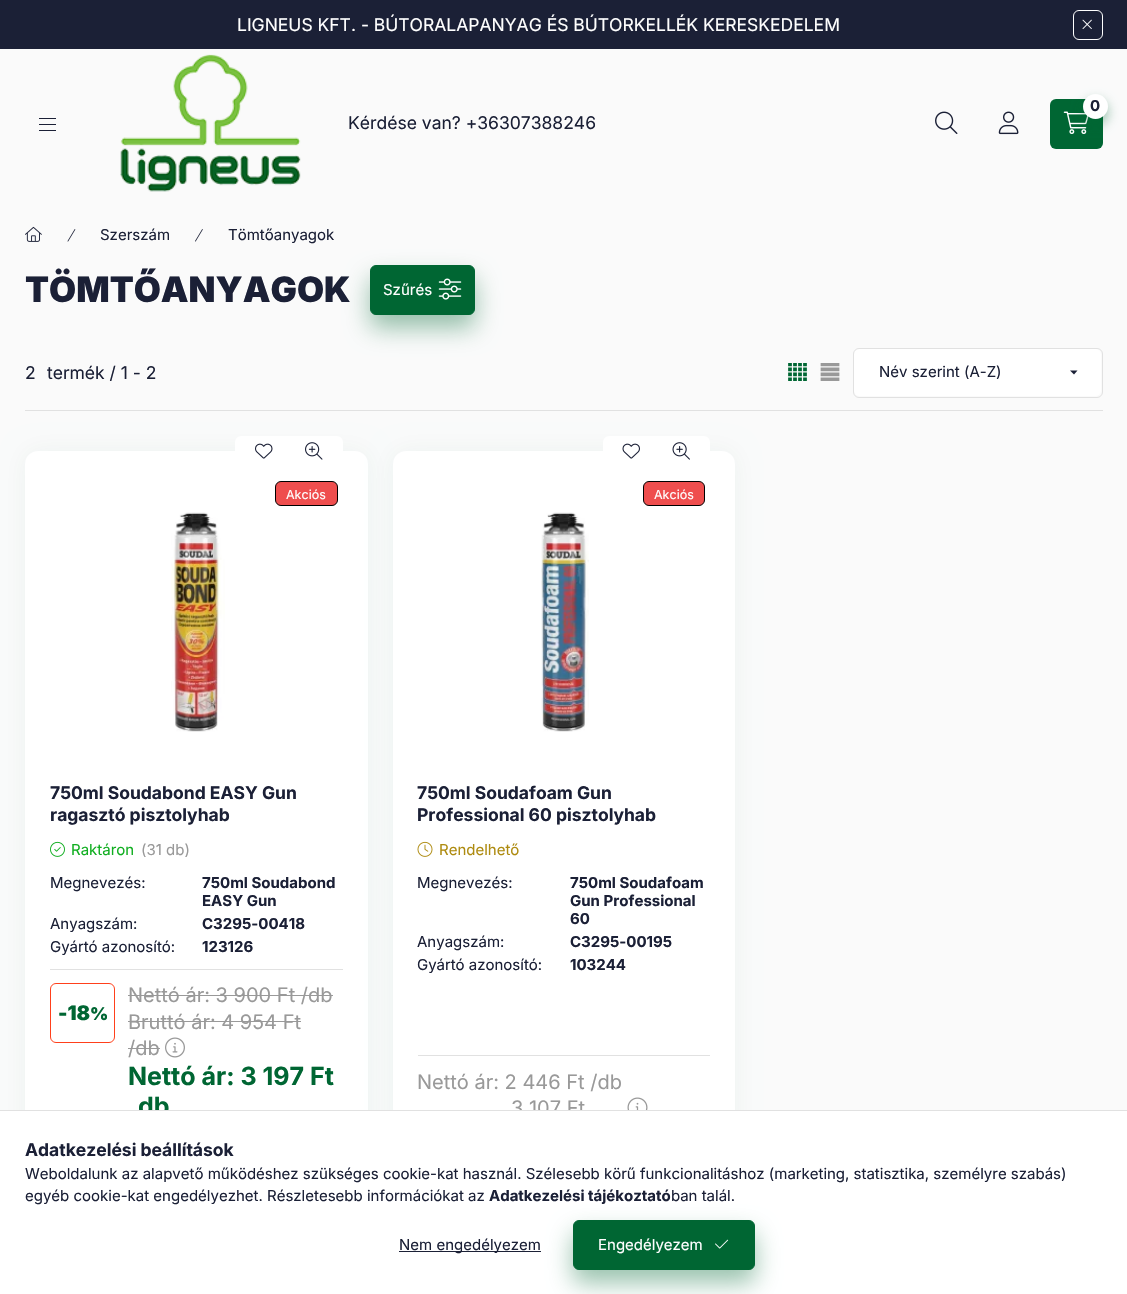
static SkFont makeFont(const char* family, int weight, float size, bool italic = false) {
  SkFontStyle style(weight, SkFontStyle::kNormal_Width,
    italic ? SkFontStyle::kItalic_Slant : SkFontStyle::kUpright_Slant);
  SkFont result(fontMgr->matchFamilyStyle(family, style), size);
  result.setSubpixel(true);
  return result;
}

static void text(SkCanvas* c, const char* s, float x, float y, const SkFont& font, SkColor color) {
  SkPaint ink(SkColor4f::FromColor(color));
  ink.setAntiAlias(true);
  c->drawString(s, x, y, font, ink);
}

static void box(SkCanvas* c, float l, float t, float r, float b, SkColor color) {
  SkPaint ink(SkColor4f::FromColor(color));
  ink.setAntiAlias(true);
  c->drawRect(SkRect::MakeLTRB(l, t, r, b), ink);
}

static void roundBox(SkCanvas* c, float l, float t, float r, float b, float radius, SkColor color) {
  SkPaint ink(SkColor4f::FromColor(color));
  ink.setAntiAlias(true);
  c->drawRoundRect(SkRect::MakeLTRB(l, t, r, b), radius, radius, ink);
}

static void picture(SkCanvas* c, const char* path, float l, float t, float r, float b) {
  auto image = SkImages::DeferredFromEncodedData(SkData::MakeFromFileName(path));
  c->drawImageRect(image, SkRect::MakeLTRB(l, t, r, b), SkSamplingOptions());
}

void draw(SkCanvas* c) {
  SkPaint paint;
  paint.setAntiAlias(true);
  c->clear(0xfffafafa);
  box(c, 0, 0, 1127, 49, 0xff1b2036);
  SkFont face1 = makeFont("Inter", 400, 17.5f);
  text(c, "LIGNEUS KFT. - BÚTORALAPANYAG ÉS BÚTORKELLÉK KERESKEDELEM", 237, 31, face1, 0xffffffff);
  paint.setStyle(SkPaint::kStroke_Style);
  paint.setStrokeWidth(1);
  paint.setColor(0xffffffff);
  c->drawRoundRect(SkRect::MakeLTRB(1073.5f, 10.5f, 1102.5f, 39.5f), 5.5f, 5.5f, paint);
  picture(c, "img_01.png", 1082, 19, 1092, 29);
  roundBox(c, 1050, 99, 1103, 149, 6, 0xff006633);
  picture(c, "img_02.png", 1063, 111, 1089, 134);
  paint.setStyle(SkPaint::kFill_Style);
  paint.setColor(0x66006633);
  paint.setMaskFilter(SkMaskFilter::MakeBlur(kNormal_SkBlurStyle, 6));
  c->drawRoundRect(SkRect::MakeLTRB(1083, 100, 1108, 125), 12.5f, 12.5f, paint);
  paint.setMaskFilter(nullptr);
  paint.setColor(0xffffffff);
  c->drawCircle(1095.5f, 106.5f, 12.5f, paint);
  SkFont face2 = makeFont("Inter", 700, 15);
  text(c, "0", 1090, 111, face2, 0xff1b2036);
  picture(c, "img_03.png", 935, 111, 958, 134);
  picture(c, "img_04.png", 998, 111, 1019, 135);
  box(c, 39, 118, 56, 119, 0xff1b2036);
  box(c, 39, 124, 56, 125, 0xff1b2036);
  box(c, 39, 130, 56, 131, 0xff1b2036);
  picture(c, "img_05.png", 120, 54, 301, 192);
  text(c, "Kérdése van? +36307388246", 348, 129, face1, 0xff1b2036);
  picture(c, "img_06.png", 25, 226, 42, 242);
  picture(c, "img_07.png", 67, 229, 76, 242);
  SkFont face3 = makeFont("Inter", 400, 15);
  text(c, "Szerszám", 100, 240, face3, 0xff1b2036);
  picture(c, "img_08.png", 195, 229, 203, 242);
  text(c, "Tömtőanyagok", 228, 240, face3, 0xff1b2036);
  SkFont face4 = makeFont("Inter", 900, 35);
  text(c, "TÖMTŐANYAGOK", 25, 302, face4, 0xff1b2036);
  paint.setColor(0x66006633);
  paint.setMaskFilter(SkMaskFilter::MakeBlur(kNormal_SkBlurStyle, 12.5f));
  c->drawRoundRect(SkRect::MakeLTRB(370, 278, 475, 328), 6, 6, paint);
  paint.setMaskFilter(nullptr);
  paint.setColor(0xff006633);
  c->drawRoundRect(SkRect::MakeLTRB(370.5f, 265.5f, 474.5f, 314.5f), 5.5f, 5.5f, paint);
  paint.setStyle(SkPaint::kStroke_Style);
  c->drawRoundRect(SkRect::MakeLTRB(370.5f, 265.5f, 474.5f, 314.5f), 5.5f, 5.5f, paint);
  text(c, "Szűrés", 383, 295, face3, 0xffffffff);
  picture(c, "img_09.png", 438, 278, 462, 300);
  box(c, 25, 410, 1103, 411, 0xffe1e1e1);
  text(c, "2", 25, 379, face1, 0xff1b2036);
  text(c, "termék / 1 - 2", 47, 379, face1, 0xff1b2036);
  picture(c, "img_10.png", 788, 363, 807, 381);
  picture(c, "img_11.png", 820, 363, 840, 381);
  roundBox(c, 854, 349, 1101, 396, 5, 0xffffffff);
  paint.setColor(0xffe1e1e1);
  c->drawRoundRect(SkRect::MakeLTRB(853.5f, 348.5f, 1102.5f, 397.5f), 5.5f, 5.5f, paint);
  text(c, "Név szerint (A-Z)", 879, 377, face3, 0xff1b2036);
  paint.setStyle(SkPaint::kFill_Style);
  paint.setColor(0xff1b2036);
  c->drawPath(SkPathBuilder().moveTo(1070, 370.5f).lineTo(1077.5f, 370.5f).lineTo(1074, 374.5f).close().detach(), paint);
  paint.setColor(0x0d006633);
  paint.setMaskFilter(SkMaskFilter::MakeBlur(kNormal_SkBlurStyle, 12.5f));
  c->drawRoundRect(SkRect::MakeLTRB(25, 451, 368, 1269), 13, 13, paint);
  paint.setMaskFilter(nullptr);
  roundBox(c, 25, 451, 368, 1269, 13, 0xffffffff);
  roundBox(c, 235, 436, 343, 466, 6, 0xffffffff);
  picture(c, "img_12.png", 255, 443, 273, 459);
  picture(c, "img_13.png", 305, 442, 323, 460);
  paint.setColor(0xffef4e4e);
  c->drawRoundRect(SkRect::MakeLTRB(275.5f, 481.5f, 337.5f, 505.5f), 5.5f, 5.5f, paint);
  paint.setStyle(SkPaint::kStroke_Style);
  paint.setColor(0xff000000);
  c->drawRoundRect(SkRect::MakeLTRB(275.5f, 481.5f, 337.5f, 505.5f), 5.5f, 5.5f, paint);
  SkFont face5 = makeFont("Inter", 400, 12.5f);
  text(c, "Akciós", 286, 499, face5, 0xffffffff);
  picture(c, "img_14.png", 171, 512, 225, 732);
  SkFont face6 = makeFont("Inter", 700, 17.5f);
  text(c, "750ml Soudabond EASY Gun", 50, 799, face6, 0xff1b2036);
  text(c, "ragasztó pisztolyhab", 50, 821, face6, 0xff1b2036);
  picture(c, "img_15.png", 50, 841, 65, 857);
  text(c, "Raktáron", 71, 855, face3, 0xff10ae20);
  text(c, "(31 db)", 141, 855, face3, 0xff999999);
  text(c, "Megnevezés:", 50, 888, face3, 0xff1b2036);
  text(c, "750ml Soudabond", 202, 888, face2, 0xff1b2036);
  text(c, "EASY Gun", 202, 906, face2, 0xff1b2036);
  text(c, "Anyagszám:", 50, 929, face3, 0xff1b2036);
  text(c, "C3295-00418", 202, 929, face2, 0xff1b2036);
  text(c, "Gyártó azonosító:", 50, 952, face3, 0xff1b2036);
  text(c, "123126", 202, 952, face2, 0xff1b2036);
  box(c, 50, 969, 343, 970, 0xffe1e1e1);
  paint.setColor(0xffff401b);
  c->drawRoundRect(SkRect::MakeLTRB(50.5f, 983.5f, 114.5f, 1042.5f), 5.5f, 5.5f, paint);
  SkFont face7 = makeFont("Inter", 900, 20);
  text(c, "-18", 58, 1020, face7, 0xff006633);
  SkFont face8 = makeFont("Inter", 900, 17.5f);
  text(c, "%", 90, 1020, face8, 0xff006633);
  SkFont face9 = makeFont("Inter", 400, 20);
  text(c, "Nettó ár: 3 900 Ft /db", 128, 1002, face9, 0xff999999);
  box(c, 128, 995, 333, 996, 0xff999999);
  text(c, "Bruttó ár: 4 954 Ft", 128, 1029, face9, 0xff999999);
  box(c, 128, 1021, 301, 1022, 0xff999999);
  text(c, "/db", 128, 1055, face9, 0xff999999);
  box(c, 128, 1048, 160, 1049, 0xff999999);
  picture(c, "img_16.png", 165, 1037, 185, 1058);
  SkFont face10 = makeFont("Inter", 700, 25);
  text(c, "Nettó ár: 3 197 Ft", 128, 1085, face10, 0xff006633);
  text(c, "db", 138, 1115, face10, 0xff006633);
  paint.setStyle(SkPaint::kFill_Style);
  paint.setColor(0x0d006633);
  paint.setMaskFilter(SkMaskFilter::MakeBlur(kNormal_SkBlurStyle, 12.5f));
  c->drawRoundRect(SkRect::MakeLTRB(393, 451, 735, 1269), 13, 13, paint);
  paint.setMaskFilter(nullptr);
  roundBox(c, 393, 451, 735, 1269, 13, 0xffffffff);
  roundBox(c, 603, 436, 710, 466, 6, 0xffffffff);
  picture(c, "img_17.png", 622, 443, 640, 459);
  picture(c, "img_18.png", 672, 442, 690, 460);
  paint.setColor(0xffef4e4e);
  c->drawRoundRect(SkRect::MakeLTRB(643.5f, 481.5f, 704.5f, 505.5f), 5.5f, 5.5f, paint);
  paint.setStyle(SkPaint::kStroke_Style);
  paint.setColor(0xff000000);
  c->drawRoundRect(SkRect::MakeLTRB(643.5f, 481.5f, 704.5f, 505.5f), 5.5f, 5.5f, paint);
  text(c, "Akciós", 654, 499, face5, 0xffffffff);
  picture(c, "img_19.png", 541, 512, 589, 732);
  text(c, "750ml Soudafoam Gun", 417, 799, face6, 0xff1b2036);
  text(c, "Professional 60 pisztolyhab", 417, 821, face6, 0xff1b2036);
  picture(c, "img_20.png", 417, 841, 433, 857);
  text(c, "Rendelhető", 439, 855, face3, 0xffae8b10);
  text(c, "Megnevezés:", 417, 888, face3, 0xff1b2036);
  text(c, "750ml Soudafoam", 570, 888, face2, 0xff1b2036);
  text(c, "Gun Professional", 570, 906, face2, 0xff1b2036);
  text(c, "60", 570, 924, face2, 0xff1b2036);
  text(c, "Anyagszám:", 417, 947, face3, 0xff1b2036);
  text(c, "C3295-00195", 570, 947, face2, 0xff1b2036);
  text(c, "Gyártó azonosító:", 417, 970, face3, 0xff1b2036);
  text(c, "103244", 570, 970, face2, 0xff1b2036);
  box(c, 418, 1055, 710, 1056, 0xffe1e1e1);
  text(c, "Nettó ár: 2 446 Ft /db", 417, 1089, face9, 0xff999999);
  text(c, "3 107 Ft", 511, 1115, face9, 0xff999999);
  picture(c, "img_21.png", 627, 1097, 648, 1110);
  box(c, 0, 1111, 1127, 1294, 0xffffffff);
  box(c, 0, 1110, 1127, 1111, 0xffe1e1e1);
  text(c, "Adatkezelési beállítások", 25, 1156, face6, 0xff1b2036);
  text(c, "Weboldalunk az alapvető működéshez szükséges cookie-kat használ. Szélesebb körű funkcionalitáshoz (marketing, statisztika, személyre szabás)", 25, 1179, face3, 0xff1b2036);
  text(c, "egyéb cookie-kat engedélyezhet. Részletesebb információkat az", 25, 1201, face3, 0xff1b2036);
  text(c, "Adatkezelési tájékoztató", 489, 1201, face2, 0xff1b2036);
  text(c, "ban talál.", 671, 1201, face3, 0xff1b2036);
  box(c, 399, 1251, 541, 1252, 0xff1b2036);
  text(c, "Nem engedélyezem", 399, 1250, face3, 0xff1b2036);
  paint.setStyle(SkPaint::kFill_Style);
  paint.setColor(0x66006633);
  paint.setMaskFilter(SkMaskFilter::MakeBlur(kNormal_SkBlurStyle, 12.5f));
  c->drawRoundRect(SkRect::MakeLTRB(573, 1233, 755, 1283), 6, 6, paint);
  paint.setMaskFilter(nullptr);
  paint.setColor(0xff006633);
  c->drawRoundRect(SkRect::MakeLTRB(573.5f, 1220.5f, 754.5f, 1269.5f), 5.5f, 5.5f, paint);
  paint.setStyle(SkPaint::kStroke_Style);
  c->drawRoundRect(SkRect::MakeLTRB(573.5f, 1220.5f, 754.5f, 1269.5f), 5.5f, 5.5f, paint);
  text(c, "Engedélyezem", 598, 1250, face3, 0xffffffff);
  picture(c, "img_22.png", 715, 1239, 729, 1249);
}
